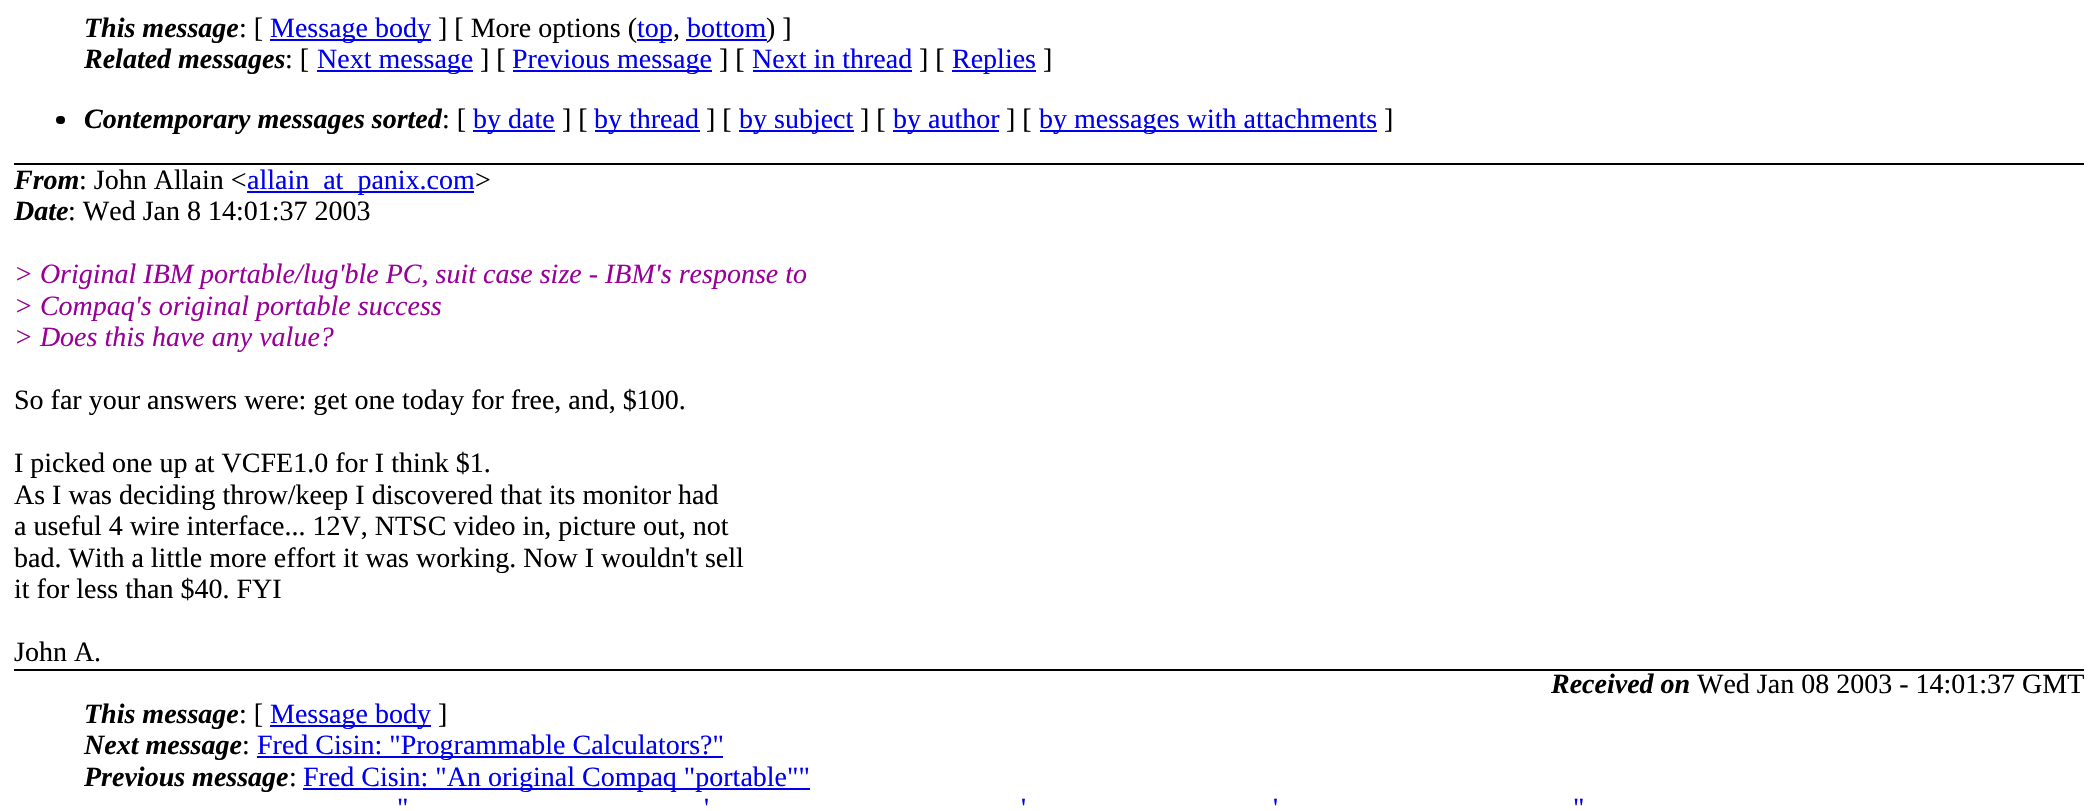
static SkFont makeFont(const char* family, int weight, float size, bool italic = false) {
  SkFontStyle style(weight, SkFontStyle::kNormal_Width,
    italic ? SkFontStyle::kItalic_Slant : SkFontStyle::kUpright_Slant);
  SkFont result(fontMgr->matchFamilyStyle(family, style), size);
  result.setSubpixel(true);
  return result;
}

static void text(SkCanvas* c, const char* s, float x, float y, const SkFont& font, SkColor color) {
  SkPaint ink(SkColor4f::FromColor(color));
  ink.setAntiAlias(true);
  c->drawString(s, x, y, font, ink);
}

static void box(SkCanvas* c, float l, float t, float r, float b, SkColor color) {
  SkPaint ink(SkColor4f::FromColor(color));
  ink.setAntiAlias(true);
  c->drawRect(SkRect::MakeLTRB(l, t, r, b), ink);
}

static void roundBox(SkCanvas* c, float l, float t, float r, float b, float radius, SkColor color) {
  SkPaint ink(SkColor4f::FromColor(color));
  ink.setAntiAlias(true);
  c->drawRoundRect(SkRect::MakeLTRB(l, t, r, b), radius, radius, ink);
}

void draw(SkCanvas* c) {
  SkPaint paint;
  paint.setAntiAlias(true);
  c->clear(0xffffffff);
  box(c, 14, 163, 2084, 165, 0xff000000);
  SkFont face1 = makeFont("Liberation Serif", 700, 28, true);
  text(c, "This message", 84, 37, face1, 0xff000000);
  SkFont face2 = makeFont("Liberation Serif", 400, 28);
  text(c, ": [", 239, 37, face2, 0xff000000);
  box(c, 270, 39, 431, 41, 0xff0000ee);
  text(c, "Message body", 270, 37, face2, 0xff0000ee);
  text(c, "] [ More options (", 438, 37, face2, 0xff000000);
  box(c, 637, 39, 672, 41, 0xff0000ee);
  text(c, "top", 637, 37, face2, 0xff0000ee);
  text(c, ",", 673, 37, face2, 0xff000000);
  text(c, "bottom", 687, 37, face2, 0xff0000ee);
  box(c, 686, 39, 767, 41, 0xff0000ee);
  text(c, ") ]", 766, 37, face2, 0xff000000);
  text(c, "Related messages", 84, 68, face1, 0xff000000);
  text(c, ": [", 285, 68, face2, 0xff000000);
  box(c, 317, 70, 473, 72, 0xff0000ee);
  text(c, "Next message", 317, 68, face2, 0xff0000ee);
  text(c, "] [", 480, 68, face2, 0xff000000);
  box(c, 513, 70, 712, 72, 0xff0000ee);
  text(c, "Previous message", 512, 68, face2, 0xff0000ee);
  text(c, "] [", 719, 68, face2, 0xff000000);
  text(c, "Next in thread", 752, 68, face2, 0xff0000ee);
  box(c, 753, 70, 912, 72, 0xff0000ee);
  text(c, "] [", 919, 68, face2, 0xff000000);
  box(c, 952, 70, 1036, 72, 0xff0000ee);
  text(c, "Replies", 952, 68, face2, 0xff0000ee);
  text(c, "]", 1043, 68, face2, 0xff000000);
  roundBox(c, 56, 116, 65, 124, 4, 0xff000000);
  text(c, "Contemporary messages sorted", 84, 128, face1, 0xff000000);
  text(c, ": [", 442, 128, face2, 0xff000000);
  box(c, 473, 130, 555, 132, 0xff0000ee);
  text(c, "by date", 473, 128, face2, 0xff0000ee);
  text(c, "] [", 562, 128, face2, 0xff000000);
  box(c, 595, 130, 700, 132, 0xff0000ee);
  text(c, "by thread", 594, 128, face2, 0xff0000ee);
  text(c, "] [", 706, 128, face2, 0xff000000);
  box(c, 739, 130, 854, 132, 0xff0000ee);
  text(c, "by subject", 739, 128, face2, 0xff0000ee);
  text(c, "] [", 860, 128, face2, 0xff000000);
  box(c, 893, 130, 999, 132, 0xff0000ee);
  text(c, "by author", 893, 128, face2, 0xff0000ee);
  text(c, "] [", 1006, 128, face2, 0xff000000);
  box(c, 1040, 130, 1377, 132, 0xff0000ee);
  text(c, "by messages with attachments", 1039, 128, face2, 0xff0000ee);
  text(c, "]", 1384, 128, face2, 0xff000000);
  text(c, "From", 14, 189, face1, 0xff000000);
  text(c, ": John Allain <", 79, 189, face2, 0xff000000);
  box(c, 247, 191, 474, 193, 0xff0000ee);
  text(c, "allain_at_panix.com", 247, 189, face2, 0xff0000ee);
  text(c, ">", 475, 189, face2, 0xff000000);
  text(c, "Date", 14, 220, face1, 0xff000000);
  text(c, ": Wed Jan 8 14:01:37 2003", 68, 220, face2, 0xff000000);
  SkFont face3 = makeFont("Liberation Serif", 400, 28, true);
  text(c, "> Original IBM portable/lug'ble PC, suit case size - IBM's response to", 14, 283, face3, 0xff990099);
  text(c, "> Compaq's original portable success", 14, 315, face3, 0xff990099);
  text(c, "> Does this have any value?", 14, 346, face3, 0xff990099);
  text(c, "So far your answers were: get one today for free, and, $100.", 14, 409, face2, 0xff000000);
  text(c, "I picked one up at VCFE1.0 for I think $1.", 14, 472, face2, 0xff000000);
  text(c, "As I was deciding throw/keep I discovered that its monitor had", 14, 504, face2, 0xff000000);
  text(c, "a useful 4 wire interface... 12V, NTSC video in, picture out, not", 14, 535, face2, 0xff000000);
  text(c, "bad. With a little more effort it was working. Now I wouldn't sell", 14, 567, face2, 0xff000000);
  text(c, "it for less than $40. FYI", 14, 598, face2, 0xff000000);
  text(c, "John A.", 14, 661, face2, 0xff000000);
  text(c, "Received on", 1551, 693, face1, 0xff000000);
  text(c, "Wed Jan 08 2003 - 14:01:37 GMT", 1697, 693, face2, 0xff000000);
  box(c, 14, 669, 2084, 671, 0xff000000);
  text(c, "This message", 84, 723, face1, 0xff000000);
  text(c, ": [", 239, 723, face2, 0xff000000);
  box(c, 270, 725, 431, 727, 0xff0000ee);
  text(c, "Message body", 270, 723, face2, 0xff0000ee);
  text(c, "]", 438, 723, face2, 0xff000000);
  text(c, "Next message", 84, 754, face1, 0xff000000);
  text(c, ":", 242, 754, face2, 0xff000000);
  box(c, 257, 756, 723, 758, 0xff0000ee);
  text(c, "Fred Cisin: \"Programmable Calculators?\"", 257, 754, face2, 0xff0000ee);
  text(c, "Previous message", 84, 786, face1, 0xff000000);
  text(c, ":", 289, 786, face2, 0xff000000);
  box(c, 303, 788, 810, 790, 0xff0000ee);
  text(c, "Fred Cisin: \"An original Compaq \"portable\"\"", 303, 786, face2, 0xff0000ee);
  text(c, "\"", 397, 817, face2, 0xff0000ee);
  text(c, "'", 704, 817, face2, 0xff0000ee);
  text(c, "'", 1021, 817, face2, 0xff0000ee);
  text(c, "'", 1273, 817, face2, 0xff0000ee);
  text(c, "\"", 1573, 817, face2, 0xff0000ee);
}
